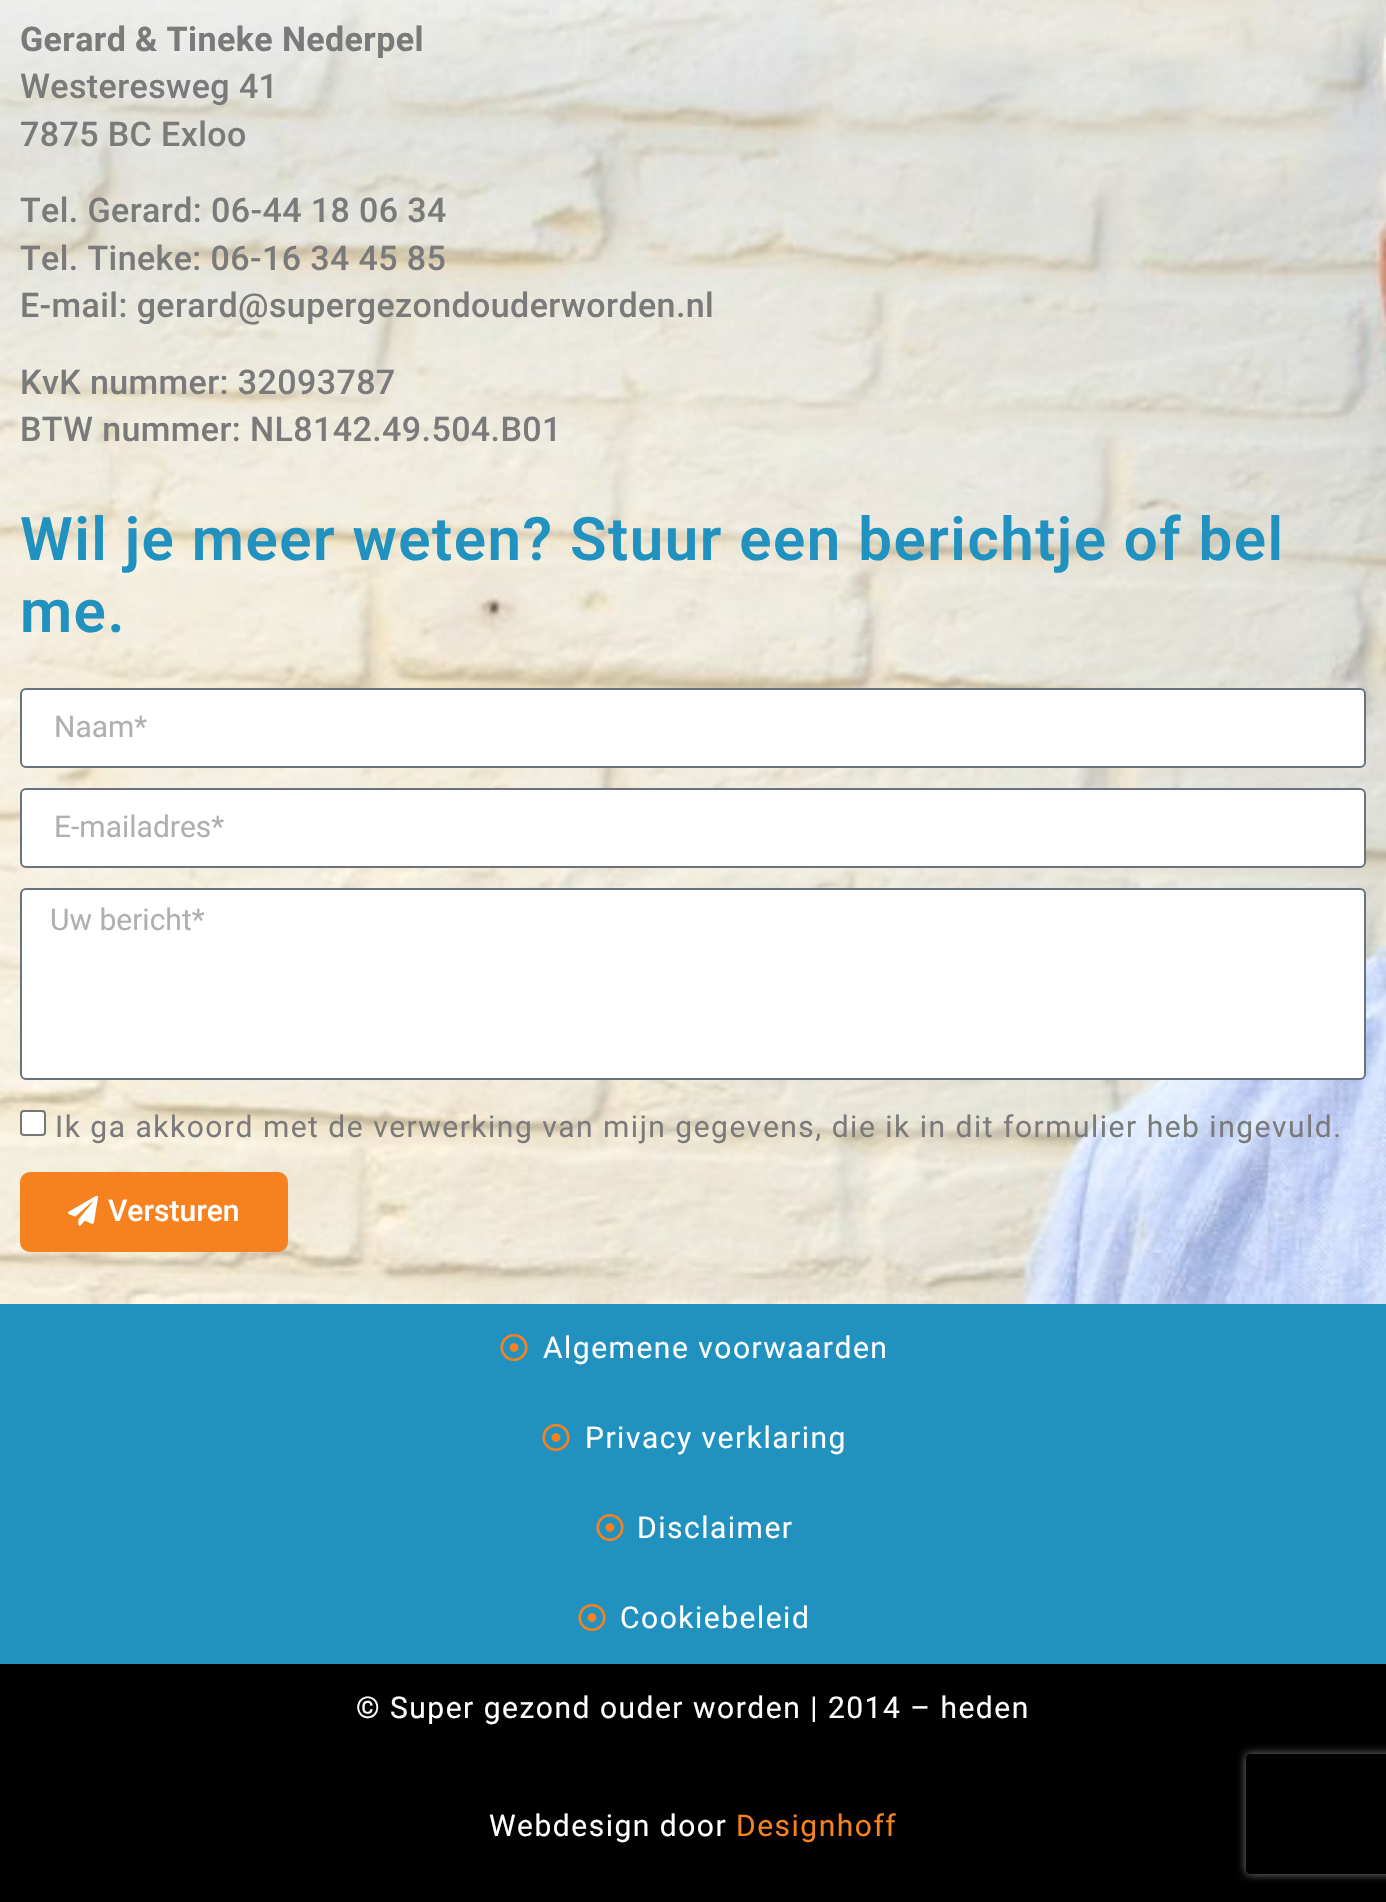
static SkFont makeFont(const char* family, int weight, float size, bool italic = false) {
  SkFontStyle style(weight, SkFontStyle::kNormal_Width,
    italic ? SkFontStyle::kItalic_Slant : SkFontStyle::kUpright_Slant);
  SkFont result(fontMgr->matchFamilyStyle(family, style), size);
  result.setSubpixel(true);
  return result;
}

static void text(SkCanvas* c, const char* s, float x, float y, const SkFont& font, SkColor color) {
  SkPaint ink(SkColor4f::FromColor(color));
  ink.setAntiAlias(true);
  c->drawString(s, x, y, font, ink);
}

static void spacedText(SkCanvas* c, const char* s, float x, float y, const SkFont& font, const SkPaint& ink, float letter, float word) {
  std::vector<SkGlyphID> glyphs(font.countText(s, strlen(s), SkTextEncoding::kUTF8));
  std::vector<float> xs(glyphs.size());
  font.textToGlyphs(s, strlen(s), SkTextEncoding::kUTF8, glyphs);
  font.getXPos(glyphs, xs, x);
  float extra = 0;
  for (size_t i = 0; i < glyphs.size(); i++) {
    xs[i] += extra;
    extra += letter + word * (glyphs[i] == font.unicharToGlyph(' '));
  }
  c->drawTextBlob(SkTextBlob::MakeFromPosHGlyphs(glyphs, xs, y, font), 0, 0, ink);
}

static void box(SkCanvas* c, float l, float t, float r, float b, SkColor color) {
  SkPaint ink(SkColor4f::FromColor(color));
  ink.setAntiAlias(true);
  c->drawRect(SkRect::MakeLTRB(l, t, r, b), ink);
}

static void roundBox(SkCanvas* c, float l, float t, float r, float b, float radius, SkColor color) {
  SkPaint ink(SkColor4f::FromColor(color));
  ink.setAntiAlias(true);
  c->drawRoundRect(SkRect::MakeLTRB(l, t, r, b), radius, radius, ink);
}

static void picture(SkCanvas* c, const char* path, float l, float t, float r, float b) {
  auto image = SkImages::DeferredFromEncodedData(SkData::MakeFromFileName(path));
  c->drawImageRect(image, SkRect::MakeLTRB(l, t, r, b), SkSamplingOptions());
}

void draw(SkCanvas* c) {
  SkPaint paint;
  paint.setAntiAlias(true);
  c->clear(0xffffffff);
  picture(c, "img_01.png", 0, 0, 1386, 1304);
  SkFont face1 = makeFont("Roboto", 700, 34);
  paint.setColor(0xff7a7a7a);
  spacedText(c, "Gerard & Tineke Nederpel", 20, 51, face1, paint, 0.4f, 0);
  SkFont face2 = makeFont("Roboto", 500, 34);
  spacedText(c, "Westeresweg 41", 20, 98, face2, paint, 0.4f, 0);
  spacedText(c, "7875 BC Exloo", 20, 146, face2, paint, 0.4f, 0);
  spacedText(c, "Tel. Gerard: 06-44 18 06 34", 20, 222, face2, paint, 0.4f, 0);
  spacedText(c, "Tel. Tineke: 06-16 34 45 85", 20, 270, face2, paint, 0.4f, 0);
  spacedText(c, "E-mail: gerard@supergezondouderworden.nl", 20, 317, face2, paint, 0.4f, 0);
  spacedText(c, "KvK nummer: 32093787", 20, 394, face2, paint, 0.4f, 0);
  spacedText(c, "BTW nummer: NL8142.49.504.B01", 20, 441, face2, paint, 0.4f, 0);
  SkFont face3 = makeFont("Roboto", 600, 60);
  paint.setColor(0xff2192bf);
  spacedText(c, "Wil je meer weten? Stuur een berichtje of bel", 20, 560, face3, paint, 1.5f, 0);
  spacedText(c, "me.", 20, 632, face3, paint, 1.5f, 0);
  paint.setColor(0xffffffff);
  c->drawRoundRect(SkRect::MakeLTRB(21, 689, 1365, 767), 5, 5, paint);
  paint.setStyle(SkPaint::kStroke_Style);
  paint.setStrokeWidth(2);
  paint.setColor(0xff69727d);
  c->drawRoundRect(SkRect::MakeLTRB(21, 689, 1365, 767), 5, 5, paint);
  SkFont face4 = makeFont("Roboto", 400, 30);
  text(c, "Naam*", 54, 737, face4, 0xffafafaf);
  paint.setStyle(SkPaint::kFill_Style);
  paint.setColor(0xffffffff);
  c->drawRoundRect(SkRect::MakeLTRB(21, 789, 1365, 867), 5, 5, paint);
  paint.setStyle(SkPaint::kStroke_Style);
  paint.setColor(0xff69727d);
  c->drawRoundRect(SkRect::MakeLTRB(21, 789, 1365, 867), 5, 5, paint);
  text(c, "E-mailadres*", 54, 837, face4, 0xffafafaf);
  paint.setStyle(SkPaint::kFill_Style);
  paint.setColor(0xffffffff);
  c->drawRoundRect(SkRect::MakeLTRB(21, 889, 1365, 1079), 5, 5, paint);
  paint.setStyle(SkPaint::kStroke_Style);
  paint.setColor(0xff69727d);
  c->drawRoundRect(SkRect::MakeLTRB(21, 889, 1365, 1079), 5, 5, paint);
  text(c, "Uw bericht*", 50, 930, face4, 0xffafafaf);
  paint.setStyle(SkPaint::kFill_Style);
  paint.setColor(0xffffffff);
  c->drawRoundRect(SkRect::MakeLTRB(21, 1111, 45, 1135), 3, 3, paint);
  paint.setStyle(SkPaint::kStroke_Style);
  paint.setColor(0xff767676);
  c->drawRoundRect(SkRect::MakeLTRB(21, 1111, 45, 1135), 3, 3, paint);
  paint.setStyle(SkPaint::kFill_Style);
  paint.setColor(0xff7a7a7a);
  spacedText(c, "Ik ga akkoord met de verwerking van mijn gegevens, die ik in dit formulier heb ingevuld.", 55, 1137, face4, paint, 1.5f, 0);
  roundBox(c, 20, 1172, 288, 1252, 10, 0xfff5821f);
  picture(c, "img_02.png", 68, 1195, 99, 1226);
  SkFont face5 = makeFont("Roboto", 500, 30);
  text(c, "Versturen", 108, 1221, face5, 0xffffffff);
  box(c, 0, 1664, 1386, 1902, 0xff000000);
  c->save();
  c->clipPath(SkPathBuilder(SkPathFillType::kEvenOdd).moveTo(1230, 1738).lineTo(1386, 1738).lineTo(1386, 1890).lineTo(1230, 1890).close().moveTo(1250, 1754).lineTo(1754, 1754).cubicTo(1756, 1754, 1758, 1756, 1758, 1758).lineTo(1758, 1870).cubicTo(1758, 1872, 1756, 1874, 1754, 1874).lineTo(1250, 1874).cubicTo(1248, 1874, 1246, 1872, 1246, 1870).lineTo(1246, 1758).cubicTo(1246, 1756, 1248, 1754, 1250, 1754).close().detach(), true);
  paint.setColor(0xff808080);
  paint.setMaskFilter(SkMaskFilter::MakeBlur(kNormal_SkBlurStyle, 5));
  c->drawRoundRect(SkRect::MakeLTRB(1246, 1754, 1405, 1874), 4, 4, paint);
  paint.setMaskFilter(nullptr);
  c->restore();
  box(c, 0, 1304, 1386, 1664, 0xff2192bf);
  picture(c, "img_03.png", 500, 1334, 528, 1361);
  paint.setColor(0xffffffff);
  spacedText(c, "Algemene voorwaarden", 543, 1358, face4, paint, 1.5f, 0);
  picture(c, "img_03.png", 542, 1424, 570, 1451);
  spacedText(c, "Privacy verklaring", 585, 1448, face4, paint, 1.5f, 0);
  picture(c, "img_03.png", 596, 1514, 624, 1541);
  spacedText(c, "Disclaimer", 637, 1538, face4, paint, 1.5f, 0);
  picture(c, "img_03.png", 578, 1604, 606, 1631);
  spacedText(c, "Cookiebeleid", 620, 1628, face4, paint, 1.5f, 0);
  spacedText(c, "© Super gezond ouder worden | 2014 – heden", 356, 1718, face4, paint, 1.5f, 0);
  spacedText(c, "Webdesign door", 489, 1836, face4, paint, 1.5f, 0);
  paint.setColor(0xfff5821f);
  spacedText(c, "Designhoff", 736, 1836, face4, paint, 1.5f, 0);
}
